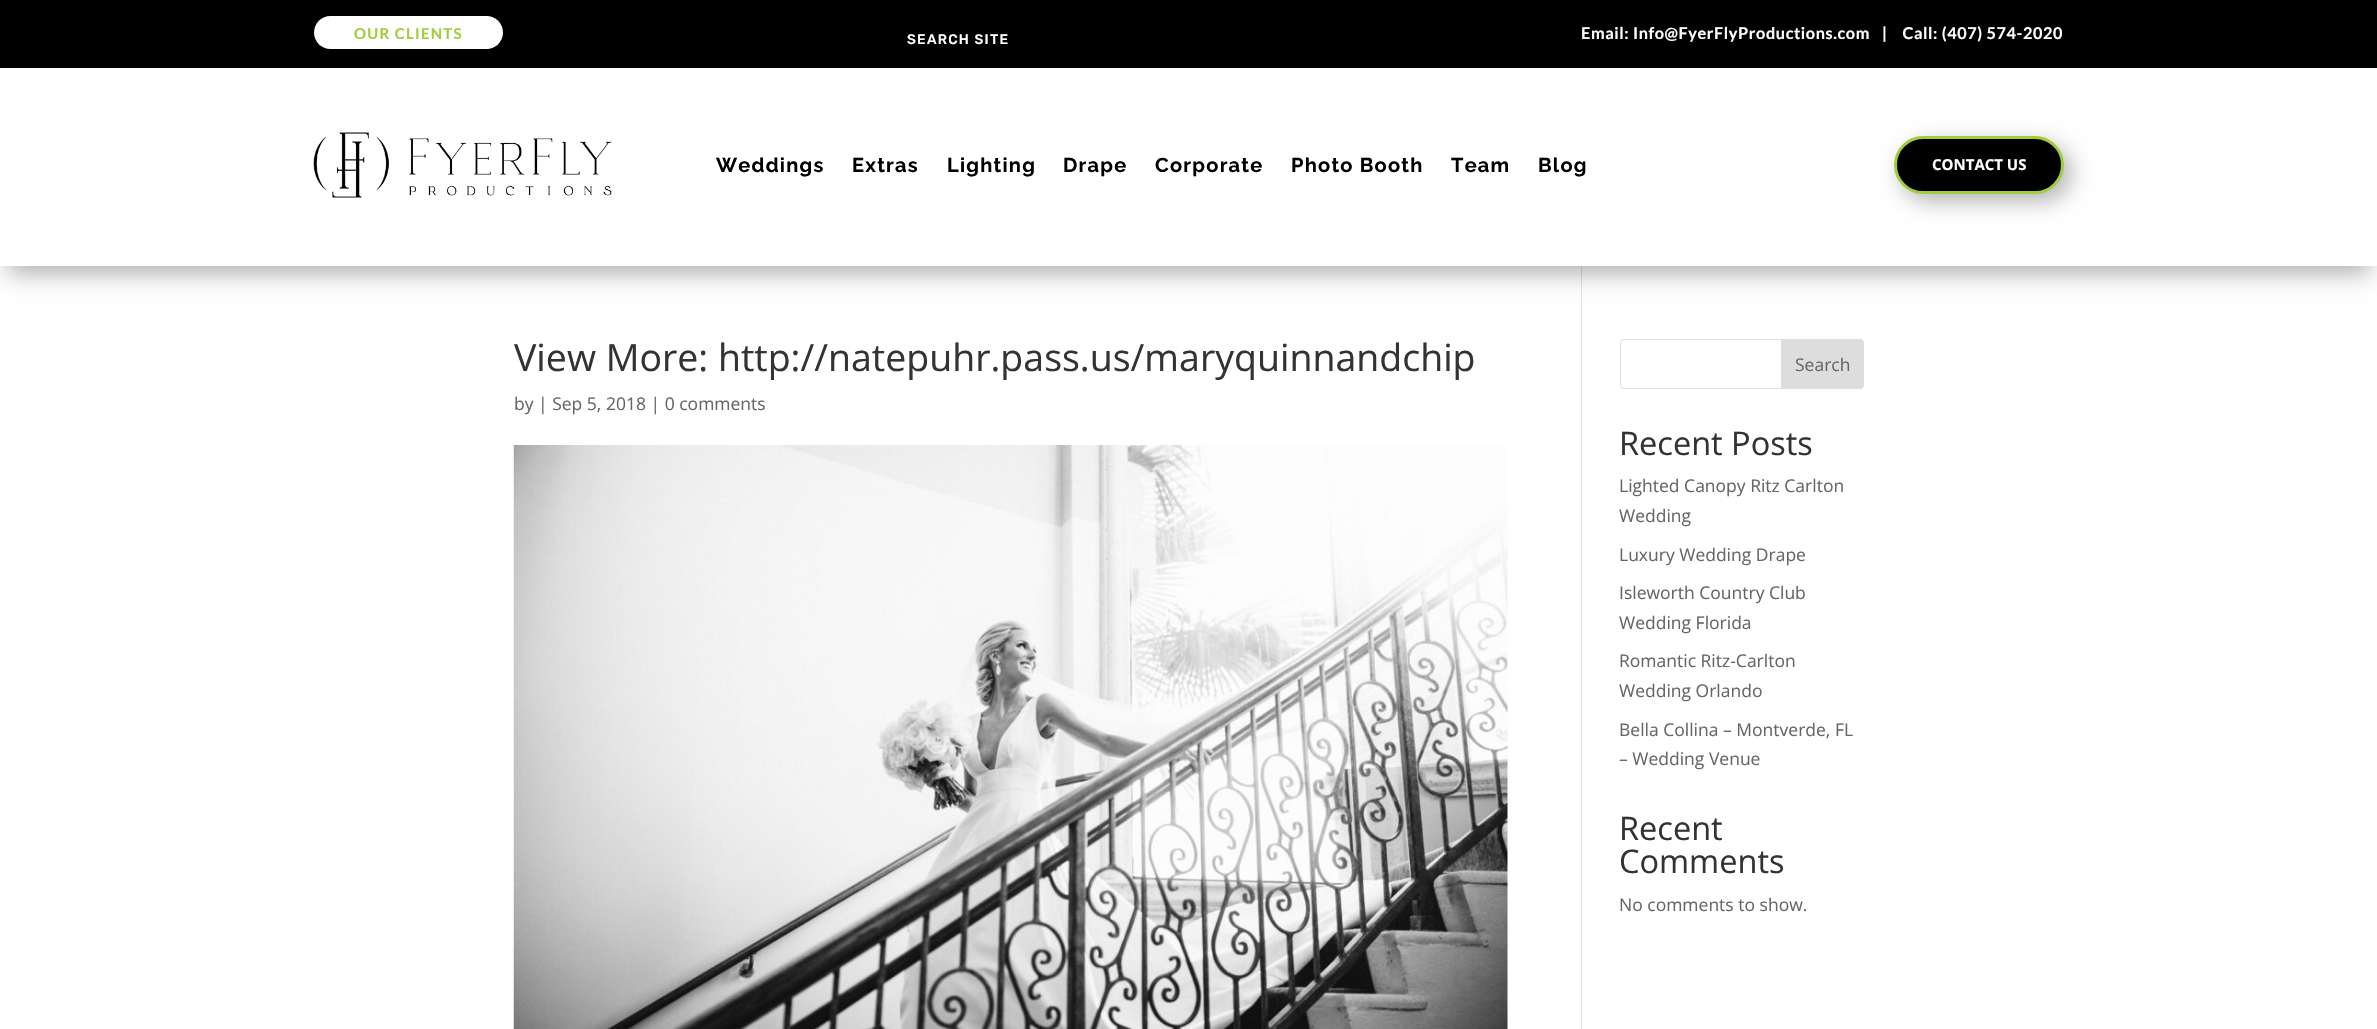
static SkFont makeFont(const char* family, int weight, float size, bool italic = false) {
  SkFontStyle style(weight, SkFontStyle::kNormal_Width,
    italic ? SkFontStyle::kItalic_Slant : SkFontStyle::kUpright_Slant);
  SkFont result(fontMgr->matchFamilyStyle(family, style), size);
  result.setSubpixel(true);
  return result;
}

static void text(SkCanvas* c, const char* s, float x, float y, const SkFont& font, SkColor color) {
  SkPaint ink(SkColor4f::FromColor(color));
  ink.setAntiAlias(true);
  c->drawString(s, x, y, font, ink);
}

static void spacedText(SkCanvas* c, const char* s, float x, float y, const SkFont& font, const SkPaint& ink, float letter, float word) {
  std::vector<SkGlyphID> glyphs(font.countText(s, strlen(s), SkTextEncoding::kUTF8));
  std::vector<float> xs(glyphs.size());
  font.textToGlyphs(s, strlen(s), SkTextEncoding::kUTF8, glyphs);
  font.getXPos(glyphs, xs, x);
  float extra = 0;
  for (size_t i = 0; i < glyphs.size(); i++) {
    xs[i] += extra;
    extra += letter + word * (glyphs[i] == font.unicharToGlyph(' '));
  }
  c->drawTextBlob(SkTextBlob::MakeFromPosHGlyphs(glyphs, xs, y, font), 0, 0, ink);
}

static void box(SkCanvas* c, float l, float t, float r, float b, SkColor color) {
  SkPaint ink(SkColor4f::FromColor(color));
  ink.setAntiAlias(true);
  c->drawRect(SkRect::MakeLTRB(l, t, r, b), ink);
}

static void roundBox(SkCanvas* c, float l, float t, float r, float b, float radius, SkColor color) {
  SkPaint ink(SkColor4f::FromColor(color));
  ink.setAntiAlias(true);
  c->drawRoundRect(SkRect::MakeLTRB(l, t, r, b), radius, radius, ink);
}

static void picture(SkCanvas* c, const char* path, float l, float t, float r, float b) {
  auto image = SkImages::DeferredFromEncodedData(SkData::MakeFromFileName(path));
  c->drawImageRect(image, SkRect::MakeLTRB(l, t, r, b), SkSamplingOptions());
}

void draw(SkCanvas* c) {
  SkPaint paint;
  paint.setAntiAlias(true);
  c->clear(0xffffffff);
  box(c, 0, 0, 2377, 68, 0xff000000);
  roundBox(c, 314, 16, 503, 49, 16.5f, 0xffffffff);
  SkFont face1 = makeFont("Lato", 700, 15);
  paint.setColor(0xffa2cc39);
  spacedText(c, "OUR CLIENTS", 354, 39, face1, paint, 1.25f, 0);
  c->save();
  c->clipPath(SkPathBuilder(SkPathFillType::kEvenOdd).moveTo(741, 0).lineTo(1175, 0).lineTo(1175, 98).lineTo(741, 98).close().moveTo(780, 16).lineTo(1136, 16).cubicTo(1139, 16, 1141, 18, 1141, 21).lineTo(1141, 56).cubicTo(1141, 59, 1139, 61, 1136, 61).lineTo(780, 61).cubicTo(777, 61, 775, 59, 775, 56).lineTo(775, 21).cubicTo(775, 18, 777, 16, 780, 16).close().detach(), true);
  paint.setColor(0x4d000000);
  paint.setMaskFilter(SkMaskFilter::MakeBlur(kNormal_SkBlurStyle, 11));
  c->drawRoundRect(SkRect::MakeLTRB(775, 19, 1141, 64), 5, 5, paint);
  paint.setMaskFilter(nullptr);
  c->restore();
  SkFont face2 = makeFont("Rubik", 500, 13.75f);
  paint.setColor(0xffffffff);
  spacedText(c, "SEARCH SITE", 907, 44, face2, paint, 1.25f, 0);
  SkFont face3 = makeFont("Lato", 700, 16.25f);
  spacedText(c, "Email: Info@FyerFlyProductions.com", 1581, 39, face3, paint, 0.6f, 0);
  spacedText(c, "|    Call: (407) 574-2020", 1882, 39, face3, paint, 0.6f, 0);
  box(c, 1581, 266, 1582, 1029, 0xffe2e2e2);
  paint.setColor(0x4d000000);
  paint.setMaskFilter(SkMaskFilter::MakeBlur(kNormal_SkBlurStyle, 11));
  c->drawRect(SkRect::MakeLTRB(8, 90, 2370, 274), paint);
  paint.setMaskFilter(nullptr);
  box(c, 0, 68, 2377, 266, 0xffffffff);
  picture(c, "img_01.png", 313, 132, 612, 198);
  SkFont face4 = makeFont("Raleway", 700, 20);
  paint.setColor(0xff000000);
  spacedText(c, "Weddings", 716, 172, face4, paint, 1.25f, 0);
  spacedText(c, "Extras", 852, 172, face4, paint, 1.25f, 0);
  spacedText(c, "Lighting", 947, 172, face4, paint, 1.25f, 0);
  spacedText(c, "Drape", 1063, 172, face4, paint, 1.25f, 0);
  spacedText(c, "Corporate", 1155, 172, face4, paint, 1.25f, 0);
  spacedText(c, "Photo Booth", 1291, 172, face4, paint, 1.25f, 0);
  spacedText(c, "Team", 1451, 172, face4, paint, 1.25f, 0);
  spacedText(c, "Blog", 1538, 172, face4, paint, 1.25f, 0);
  paint.setColor(0x4d000000);
  paint.setMaskFilter(SkMaskFilter::MakeBlur(kNormal_SkBlurStyle, 11));
  c->drawRoundRect(SkRect::MakeLTRB(1901, 144, 2071, 201), 28.5f, 28.5f, paint);
  paint.setMaskFilter(nullptr);
  paint.setColor(0xff000000);
  c->drawRoundRect(SkRect::MakeLTRB(1895.5f, 137.5f, 2062.5f, 192.5f), 27.5f, 27.5f, paint);
  paint.setStyle(SkPaint::kStroke_Style);
  paint.setStrokeWidth(3);
  paint.setColor(0xffa2cc39);
  c->drawRoundRect(SkRect::MakeLTRB(1895.5f, 137.5f, 2062.5f, 192.5f), 27.5f, 27.5f, paint);
  SkFont face5 = makeFont("Open Sans", 700, 15);
  text(c, "CONTACT US", 1932, 170, face5, 0xffffffff);
  SkFont face6 = makeFont("Open Sans", 400, 37.5f);
  text(c, "View More: http://natepuhr.pass.us/maryquinnandchip", 514, 371, face6, 0xff333333);
  SkFont face7 = makeFont("Open Sans", 400, 17.5f);
  text(c, "by | Sep 5, 2018 | 0 comments", 514, 410, face7, 0xff666666);
  picture(c, "img_02.png", 513, 445, 1508, 1029);
  paint.setStrokeWidth(1);
  paint.setColor(0xffdddddd);
  c->drawRoundRect(SkRect::MakeLTRB(1620.5f, 339.5f, 1863.5f, 388.5f), 3.5f, 3.5f, paint);
  paint.setStyle(SkPaint::kFill_Style);
  c->drawPath(SkPathBuilder().moveTo(1781.5f, 339.5f).lineTo(1860, 339.5f).cubicTo(1862, 339.5f, 1863.5f, 341, 1863.5f, 343).lineTo(1863.5f, 385).cubicTo(1863.5f, 387, 1862, 388.5f, 1860, 388.5f).lineTo(1781.5f, 388.5f).close().detach(), paint);
  paint.setStyle(SkPaint::kStroke_Style);
  c->drawPath(SkPathBuilder().moveTo(1781.5f, 339.5f).lineTo(1860, 339.5f).cubicTo(1862, 339.5f, 1863.5f, 341, 1863.5f, 343).lineTo(1863.5f, 385).cubicTo(1863.5f, 387, 1862, 388.5f, 1860, 388.5f).lineTo(1781.5f, 388.5f).close().detach(), paint);
  text(c, "Search", 1795, 371, face7, 0xff666666);
  SkFont face8 = makeFont("Open Sans", 400, 32.5f);
  text(c, "Recent Posts", 1619, 455, face8, 0xff333333);
  text(c, "Lighted Canopy Ritz Carlton", 1619, 492, face7, 0xff666666);
  text(c, "Wedding", 1619, 522, face7, 0xff666666);
  text(c, "Luxury Wedding Drape", 1619, 561, face7, 0xff666666);
  text(c, "Isleworth Country Club", 1619, 599, face7, 0xff666666);
  text(c, "Wedding Florida", 1619, 629, face7, 0xff666666);
  text(c, "Romantic Ritz-Carlton", 1619, 667, face7, 0xff666666);
  text(c, "Wedding Orlando", 1619, 697, face7, 0xff666666);
  text(c, "Bella Collina – Montverde, FL", 1619, 736, face7, 0xff666666);
  text(c, "– Wedding Venue", 1619, 765, face7, 0xff666666);
  text(c, "Recent", 1619, 840, face8, 0xff333333);
  text(c, "Comments", 1619, 873, face8, 0xff333333);
  text(c, "No comments to show.", 1619, 911, face7, 0xff666666);
}
